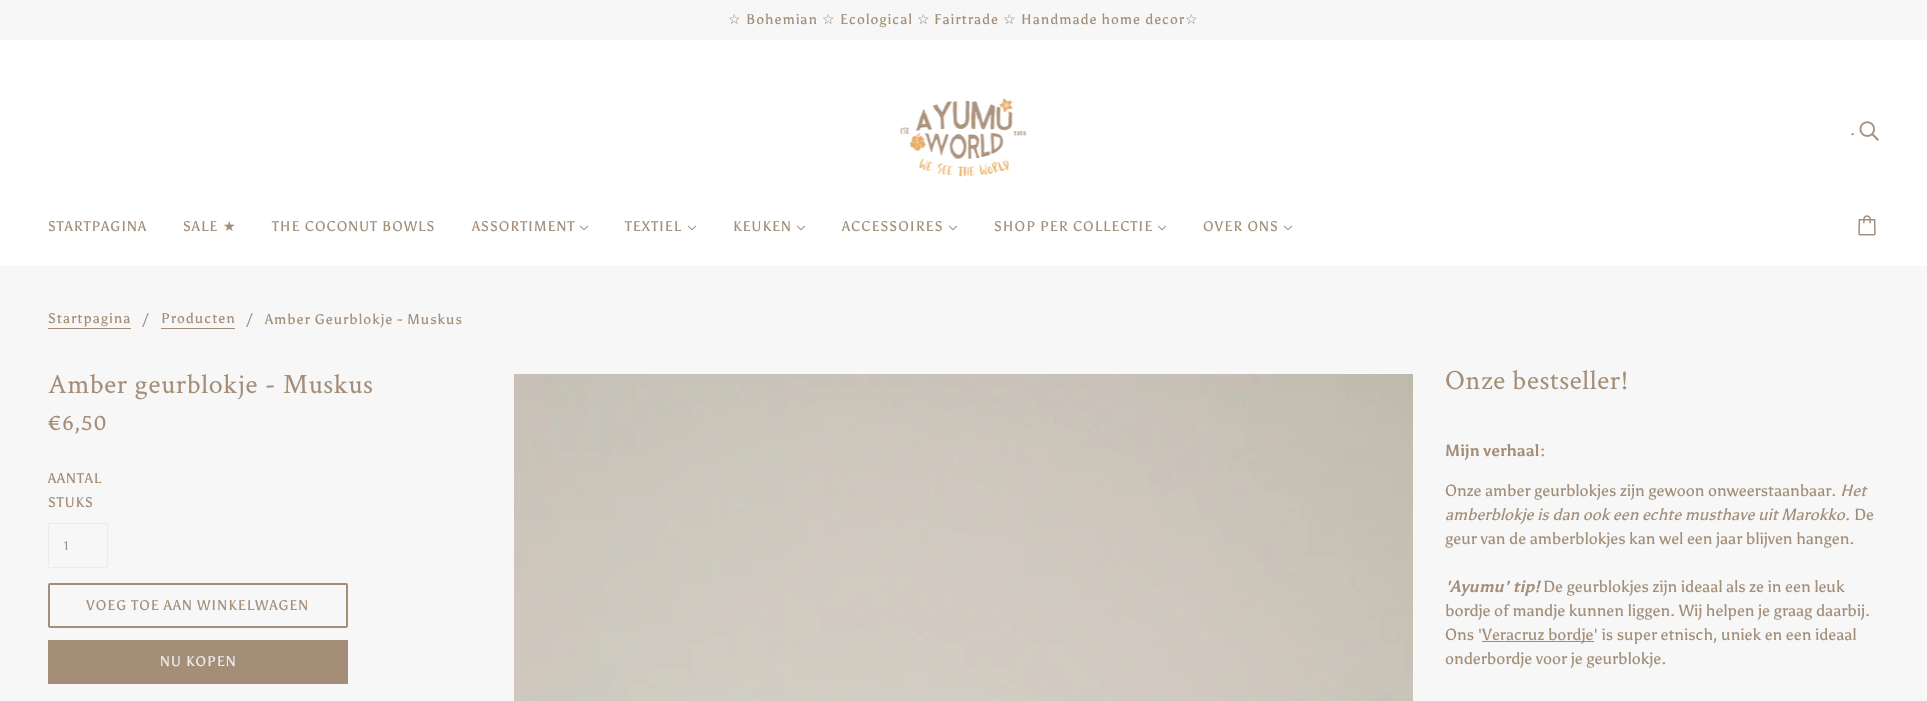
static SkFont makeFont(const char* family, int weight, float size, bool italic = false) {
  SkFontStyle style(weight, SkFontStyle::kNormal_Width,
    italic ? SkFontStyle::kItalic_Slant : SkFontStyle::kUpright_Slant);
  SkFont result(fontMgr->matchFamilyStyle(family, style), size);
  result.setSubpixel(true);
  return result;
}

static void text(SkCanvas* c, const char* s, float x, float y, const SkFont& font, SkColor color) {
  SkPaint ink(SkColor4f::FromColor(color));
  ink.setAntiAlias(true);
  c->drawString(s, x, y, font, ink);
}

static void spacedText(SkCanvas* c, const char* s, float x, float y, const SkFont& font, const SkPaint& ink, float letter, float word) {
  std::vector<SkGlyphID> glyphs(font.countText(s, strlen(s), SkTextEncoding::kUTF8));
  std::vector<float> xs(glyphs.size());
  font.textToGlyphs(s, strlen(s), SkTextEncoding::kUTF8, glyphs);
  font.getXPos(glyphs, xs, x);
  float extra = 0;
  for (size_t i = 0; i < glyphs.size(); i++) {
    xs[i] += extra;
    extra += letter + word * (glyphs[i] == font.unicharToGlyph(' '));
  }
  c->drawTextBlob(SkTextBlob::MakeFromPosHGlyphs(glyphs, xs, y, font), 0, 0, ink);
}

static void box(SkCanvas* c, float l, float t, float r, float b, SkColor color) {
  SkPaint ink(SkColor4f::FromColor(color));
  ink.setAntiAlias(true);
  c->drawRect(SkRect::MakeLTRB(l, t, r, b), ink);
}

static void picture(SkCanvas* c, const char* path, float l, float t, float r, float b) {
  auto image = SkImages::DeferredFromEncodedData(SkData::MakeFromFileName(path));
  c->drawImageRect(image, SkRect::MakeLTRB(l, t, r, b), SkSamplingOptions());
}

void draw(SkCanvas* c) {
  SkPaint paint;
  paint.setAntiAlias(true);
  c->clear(0xfff7f7f7);
  SkFont face1 = makeFont("DejaVu Sans", 400, 14);
  paint.setColor(0xffa48e78);
  spacedText(c, "☆", 728, 24, face1, paint, 1, 0);
  SkFont face2 = makeFont("Asul", 400, 14);
  spacedText(c, "Bohemian", 746, 24, face2, paint, 1, 0);
  spacedText(c, "☆", 822, 24, face1, paint, 1, 0);
  spacedText(c, "Ecological", 840, 24, face2, paint, 1, 0);
  spacedText(c, "☆", 917, 24, face1, paint, 1, 0);
  spacedText(c, "Fairtrade", 934, 24, face2, paint, 1, 0);
  spacedText(c, "☆", 1003, 24, face1, paint, 1, 0);
  spacedText(c, "Handmade home decor", 1021, 24, face2, paint, 1, 0);
  spacedText(c, "☆", 1185, 24, face1, paint, 1, 0);
  box(c, 0, 40, 1927, 266, 0xffffffff);
  picture(c, "img_01.png", 900, 98, 1027, 177);
  SkFont face3 = makeFont("Asul", 400, 16);
  text(c, ".", 1850, 135, face3, 0xffa48e78);
  picture(c, "img_02.png", 1859, 121, 1879, 141);
  spacedText(c, "STARTPAGINA", 48, 231, face2, paint, 1, 0);
  spacedText(c, "SALE", 183, 231, face2, paint, 1, 0);
  spacedText(c, "★", 223, 231, face1, paint, 1, 0);
  spacedText(c, "THE COCONUT BOWLS", 272, 231, face2, paint, 1, 0);
  spacedText(c, "ASSORTIMENT", 472, 231, face2, paint, 1, 0);
  picture(c, "img_03.png", 579, 225, 589, 231);
  spacedText(c, "TEXTIEL", 625, 231, face2, paint, 1, 0);
  picture(c, "img_03.png", 687, 225, 697, 231);
  spacedText(c, "KEUKEN", 733, 231, face2, paint, 1, 0);
  picture(c, "img_03.png", 796, 225, 806, 231);
  spacedText(c, "ACCESSOIRES", 842, 231, face2, paint, 1, 0);
  picture(c, "img_03.png", 948, 225, 958, 231);
  spacedText(c, "SHOP PER COLLECTIE", 994, 231, face2, paint, 1, 0);
  picture(c, "img_03.png", 1157, 225, 1167, 231);
  spacedText(c, "OVER ONS", 1203, 231, face2, paint, 1, 0);
  picture(c, "img_03.png", 1283, 225, 1293, 231);
  picture(c, "img_04.png", 1858, 215, 1876, 236);
  spacedText(c, "Startpagina", 48, 323, face2, paint, 1, 0);
  box(c, 48, 328, 131, 329, 0xffa48e78);
  text(c, "/", 143, 325, face3, 0xffa48e78);
  spacedText(c, "Producten", 161, 323, face2, paint, 1, 0);
  box(c, 161, 328, 235, 329, 0xffa48e78);
  text(c, "/", 247, 325, face3, 0xffa48e78);
  spacedText(c, "Amber Geurblokje - Muskus", 265, 324, face2, paint, 1, 0);
  SkFont face4 = makeFont("Crimson Text", 400, 28);
  spacedText(c, "Amber geurblokje - Muskus", 48, 393, face4, paint, 0.7f, 0);
  picture(c, "img_05.png", 514, 374, 1413, 701);
  spacedText(c, "Onze bestseller!", 1445, 389, face4, paint, 0.7f, 0);
  SkFont face5 = makeFont("Asul", 700, 16);
  text(c, "Mijn verhaal", 1445, 456, face5, 0xffa48e78);
  text(c, ":", 1540, 456, face3, 0xffa48e78);
  text(c, "Onze amber geurblokjes zijn gewoon onweerstaanbaar.", 1445, 496, face3, 0xffa48e78);
  SkFont face6 = makeFont("Asul", 400, 16, true);
  text(c, "Het", 1840, 496, face6, 0xffa48e78);
  text(c, "amberblokje is dan ook een echte musthave uit Marokko.", 1445, 520, face6, 0xffa48e78);
  text(c, "De", 1854, 520, face3, 0xffa48e78);
  text(c, "geur van de amberblokjes kan wel een jaar blijven hangen.", 1445, 544, face3, 0xffa48e78);
  SkFont face7 = makeFont("Asul", 700, 16, true);
  text(c, "'Ayumu' tip!", 1445, 592, face7, 0xffa48e78);
  text(c, "De geurblokjes zijn ideaal als ze in een leuk", 1543, 592, face3, 0xffa48e78);
  text(c, "bordje of mandje kunnen liggen. Wij helpen je graag daarbij.", 1445, 616, face3, 0xffa48e78);
  text(c, "Ons '", 1445, 640, face3, 0xffa48e78);
  box(c, 1482, 641, 1594, 642, 0xffa48e78);
  text(c, "Veracruz bordje' is super etnisch, uniek en een ideaal", 1482, 640, face3, 0xffa48e78);
  text(c, "onderbordje voor je geurblokje.", 1445, 664, face3, 0xffa48e78);
  SkFont face8 = makeFont("Asul", 400, 20);
  spacedText(c, "€6,50", 48, 430, face8, paint, 1, 0);
  spacedText(c, "AANTAL", 48, 483, face2, paint, 1, 0);
  spacedText(c, "STUKS", 48, 507, face2, paint, 1, 0);
  paint.setStyle(SkPaint::kStroke_Style);
  paint.setStrokeWidth(1);
  paint.setColor(0xffebebeb);
  c->drawRoundRect(SkRect::MakeLTRB(48.5f, 523.5f, 107.5f, 567.5f), 1.5f, 1.5f, paint);
  SkFont face9 = makeFont("Asul", 400, 12);
  paint.setStyle(SkPaint::kFill_Style);
  paint.setColor(0xffa48e78);
  spacedText(c, "1", 64, 550, face9, paint, 1, 0);
  paint.setStyle(SkPaint::kStroke_Style);
  paint.setStrokeWidth(2);
  c->drawRoundRect(SkRect::MakeLTRB(49, 584, 347, 627), 1, 1, paint);
  paint.setStyle(SkPaint::kFill_Style);
  spacedText(c, "VOEG TOE AAN WINKELWAGEN", 86, 610, face2, paint, 1, 0);
  box(c, 48, 640, 348, 684, 0xffa48e78);
  paint.setColor(0xffebebeb);
  spacedText(c, "NU KOPEN", 160, 666, face2, paint, 1, 0);
}
